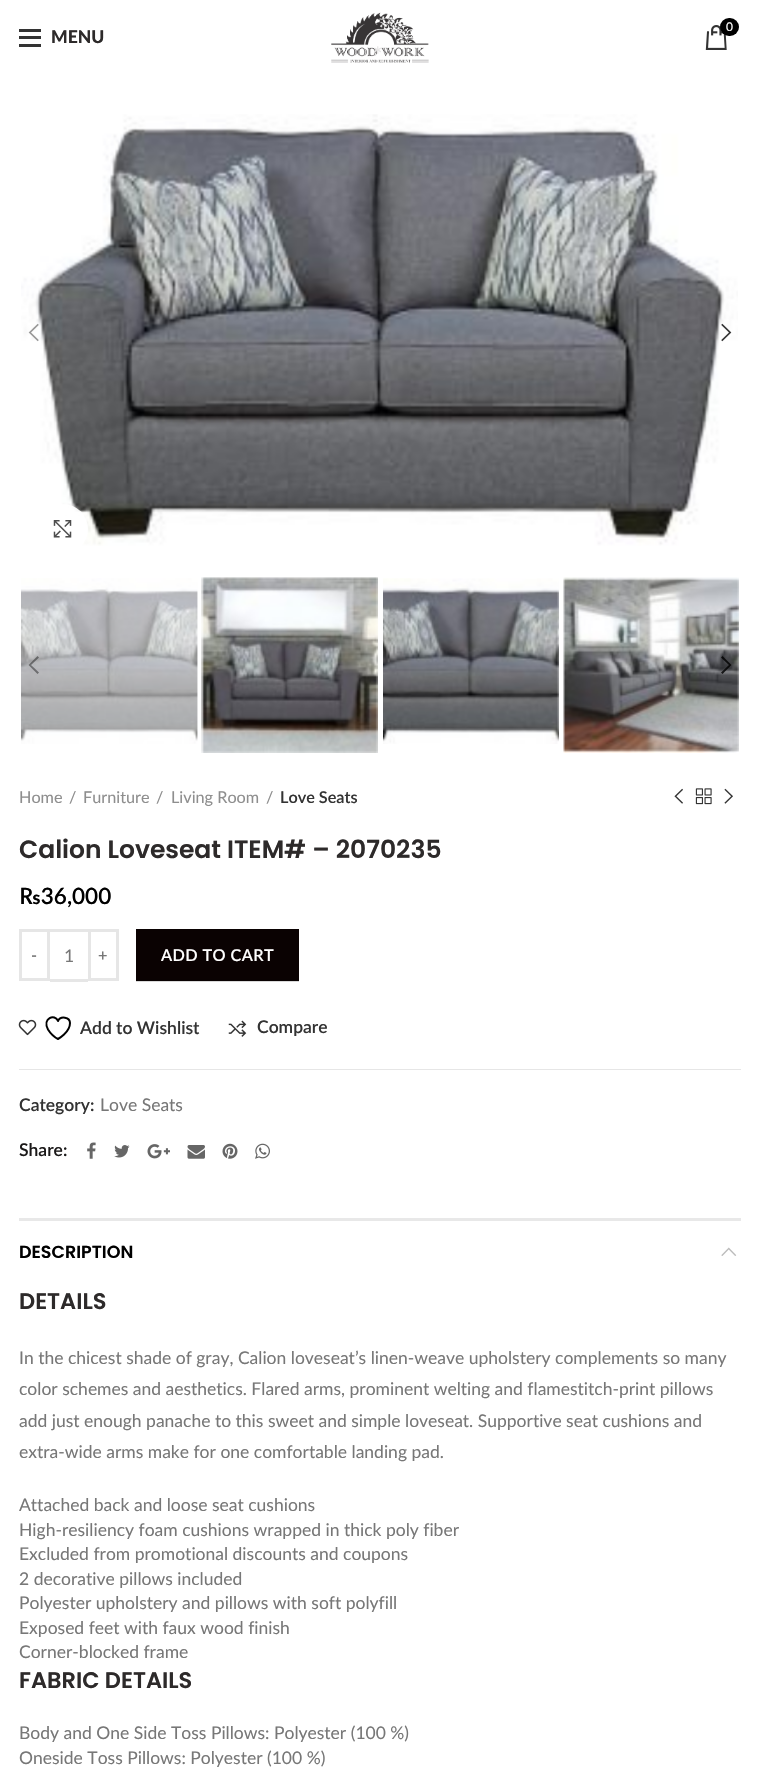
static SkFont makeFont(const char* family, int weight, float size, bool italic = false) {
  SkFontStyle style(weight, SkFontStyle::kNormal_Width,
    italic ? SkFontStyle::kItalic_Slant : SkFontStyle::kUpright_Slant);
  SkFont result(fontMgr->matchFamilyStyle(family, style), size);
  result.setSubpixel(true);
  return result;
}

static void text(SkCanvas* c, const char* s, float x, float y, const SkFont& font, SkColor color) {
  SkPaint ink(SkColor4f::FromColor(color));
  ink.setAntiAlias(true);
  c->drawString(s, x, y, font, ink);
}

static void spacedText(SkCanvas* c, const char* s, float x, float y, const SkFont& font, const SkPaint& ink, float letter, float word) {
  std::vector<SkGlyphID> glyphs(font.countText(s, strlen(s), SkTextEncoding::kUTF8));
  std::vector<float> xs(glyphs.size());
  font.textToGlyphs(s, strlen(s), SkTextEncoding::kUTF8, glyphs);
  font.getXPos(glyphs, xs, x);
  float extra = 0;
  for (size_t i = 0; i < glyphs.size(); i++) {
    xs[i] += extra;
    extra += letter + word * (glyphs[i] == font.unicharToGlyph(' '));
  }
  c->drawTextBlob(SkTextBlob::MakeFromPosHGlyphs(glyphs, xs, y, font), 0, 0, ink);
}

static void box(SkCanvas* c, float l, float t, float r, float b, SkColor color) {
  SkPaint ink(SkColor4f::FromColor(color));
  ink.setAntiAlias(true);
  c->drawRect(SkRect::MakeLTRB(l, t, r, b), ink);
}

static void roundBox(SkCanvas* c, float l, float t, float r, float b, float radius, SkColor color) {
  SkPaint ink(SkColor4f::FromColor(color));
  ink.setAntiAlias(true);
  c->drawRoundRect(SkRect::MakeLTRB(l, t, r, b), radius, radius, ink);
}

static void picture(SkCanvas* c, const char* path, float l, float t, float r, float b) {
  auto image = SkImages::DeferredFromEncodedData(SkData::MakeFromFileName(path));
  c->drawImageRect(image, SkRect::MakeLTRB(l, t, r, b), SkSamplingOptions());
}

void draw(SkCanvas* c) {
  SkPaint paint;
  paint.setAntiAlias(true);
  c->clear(0xffffffff);
  box(c, 136, 981, 299, 982, 0xffd9d9d9);
  picture(c, "img_01.png", 331, 12, 429, 63);
  box(c, 19, 36, 41, 39, 0xff333333);
  box(c, 19, 29, 41, 32, 0xff333333);
  box(c, 19, 44, 41, 47, 0xff333333);
  SkFont face1 = makeFont("Lato", 900, 17.5f);
  text(c, "MENU", 51, 43, face1, 0xff2d2a2a);
  picture(c, "img_02.png", 705, 25, 727, 50);
  roundBox(c, 720, 18, 739, 36, 9, 0xff000000);
  SkFont face2 = makeFont("Lato", 400, 12);
  text(c, "0", 726, 31, face2, 0xffffffff);
  SkFont face3 = makeFont("Lato", 400, 22);
  text(c, "*", 373, 63, face3, 0xffe7e6e6);
  picture(c, "img_03.png", 21, 114, 738, 546);
  picture(c, "img_04.png", 28, 323, 39, 342);
  picture(c, "img_05.png", 721, 323, 732, 342);
  paint.setColor(0xe6ffffff);
  c->drawCircle(63, 529, 25, paint);
  picture(c, "img_06.png", 53, 520, 72, 538);
  picture(c, "img_07.png", 21, 578, 198, 744);
  picture(c, "img_08.png", 201, 577, 378, 753);
  picture(c, "img_09.png", 383, 578, 559, 744);
  picture(c, "img_10.png", 563, 577, 739, 753);
  paint.setColor(0x66000000);
  c->drawPath(SkPathBuilder().moveTo(39, 657.5f).lineTo(37.5f, 656).lineTo(28.5f, 665).lineTo(37.5f, 674).lineTo(39, 672.5f).lineTo(31, 665).close().detach(), paint);
  paint.setColor(0xcc000000);
  c->drawPath(SkPathBuilder().moveTo(722.5f, 656).lineTo(721, 657.5f).lineTo(729, 665).lineTo(721, 672.5f).lineTo(722.5f, 674).lineTo(731.5f, 665).close().detach(), paint);
  SkFont face4 = makeFont("Lato", 400, 16.25f);
  text(c, "Home", 19, 803, face4, 0xff8e8e8e);
  text(c, "/", 69, 803, face4, 0xff8e8e8e);
  text(c, "Furniture", 83, 803, face4, 0xff8e8e8e);
  text(c, "/", 156, 803, face4, 0xff8e8e8e);
  text(c, "Living Room", 171, 803, face4, 0xff8e8e8e);
  text(c, "/", 266, 803, face4, 0xff8e8e8e);
  SkFont face5 = makeFont("Lato", 600, 16.25f);
  text(c, "Love Seats", 280, 803, face5, 0xff333333);
  picture(c, "img_11.png", 674, 788, 683, 804);
  picture(c, "img_12.png", 695, 788, 712, 805);
  picture(c, "img_13.png", 724, 788, 733, 804);
  SkFont face6 = makeFont("Poppins", 600, 25);
  text(c, "Calion Loveseat ITEM# – 2070235", 19, 858, face6, 0xff2d2a2a);
  SkFont face7 = makeFont("Lato", 600, 22.5f);
  text(c, "₨36,000", 19, 904, face7, 0xff000000);
  paint.setStyle(SkPaint::kStroke_Style);
  paint.setStrokeWidth(3);
  paint.setColor(0xffe6e6e6);
  c->drawRect(SkRect::MakeLTRB(20.5f, 930.5f, 48.5f, 979.5f), paint);
  paint.setStyle(SkPaint::kFill_Style);
  paint.setColor(0xff777777);
  spacedText(c, "-", 31, 961, face5, paint, 0.4f, 0);
  box(c, 50, 929, 88, 932, 0xffe6e6e6);
  box(c, 50, 979, 88, 982, 0xffe6e6e6);
  SkFont face8 = makeFont("Lato", 400, 17.5f);
  text(c, "1", 64, 962, face8, 0xff777777);
  paint.setStyle(SkPaint::kStroke_Style);
  paint.setColor(0xffe6e6e6);
  c->drawRect(SkRect::MakeLTRB(89.5f, 930.5f, 117.5f, 979.5f), paint);
  paint.setStyle(SkPaint::kFill_Style);
  paint.setColor(0xff777777);
  spacedText(c, "+", 98, 961, face5, paint, 0.4f, 0);
  box(c, 136, 929, 299, 979, 0xff0a0202);
  box(c, 136, 979, 299, 981, 0xff090202);
  paint.setColor(0xffffffff);
  spacedText(c, "ADD TO CART", 161, 961, face5, paint, 0.4f, 0);
  picture(c, "img_14.png", 18, 1019, 37, 1036);
  paint.setStyle(SkPaint::kStroke_Style);
  paint.setStrokeWidth(2);
  paint.setStrokeCap(SkPaint::kRound_Cap);
  paint.setStrokeJoin(SkPaint::kRound_Join);
  paint.setColor(0xff000000);
  c->drawPath(SkPathBuilder().moveTo(70, 1023).cubicTo(70, 1017, 60.5f, 1015.5f, 58, 1021).cubicTo(55, 1013.5f, 42, 1018, 48, 1029.5f).cubicTo(50.5f, 1033.5f, 54, 1037, 58, 1039).cubicTo(58, 1039, 70, 1032.5f, 70, 1023).close().detach(), paint);
  SkFont face9 = makeFont("Lato", 600, 17.5f);
  text(c, "Add to Wishlist", 80, 1034, face9, 0xff333333);
  picture(c, "img_15.png", 228, 1020, 247, 1037);
  text(c, "Compare", 257, 1033, face9, 0xff333333);
  box(c, 19, 1069, 741, 1070, 0xffe6e6e6);
  text(c, "Category:", 19, 1111, face9, 0xff333333);
  text(c, "Love Seats", 100, 1111, face8, 0xff777777);
  text(c, "Share:", 19, 1156, face9, 0xff1b1919);
  picture(c, "img_16.png", 87, 1142, 96, 1159);
  picture(c, "img_17.png", 114, 1145, 130, 1158);
  picture(c, "img_18.png", 147, 1144, 170, 1159);
  picture(c, "img_19.png", 187, 1145, 205, 1159);
  picture(c, "img_20.png", 222, 1143, 238, 1159);
  picture(c, "img_21.png", 255, 1143, 270, 1159);
  box(c, 19, 1218, 741, 1221, 0xffe8e8e8);
  SkFont face10 = makeFont("Poppins", 600, 17.5f);
  text(c, "DESCRIPTION", 19, 1258, face10, 0xff000000);
  picture(c, "img_22.png", 721, 1247, 737, 1256);
  SkFont face11 = makeFont("Poppins", 600, 22.5f);
  text(c, "DETAILS", 19, 1309, face11, 0xff2d2a2a);
  text(c, "In the chicest shade of gray, Calion loveseat’s linen-weave upholstery complements so many", 19, 1364, face8, 0xff777777);
  text(c, "color schemes and aesthetics. Flared arms, prominent welting and flamestitch-print pillows", 19, 1395, face8, 0xff777777);
  text(c, "add just enough panache to this sweet and simple loveseat. Supportive seat cushions and", 19, 1427, face8, 0xff777777);
  text(c, "extra-wide arms make for one comfortable landing pad.", 19, 1458, face8, 0xff777777);
  text(c, "Attached back and loose seat cushions", 19, 1511, face8, 0xff777777);
  text(c, "High-resiliency foam cushions wrapped in thick poly fiber", 19, 1536, face8, 0xff777777);
  text(c, "Excluded from promotional discounts and coupons", 19, 1560, face8, 0xff777777);
  text(c, "2 decorative pillows included", 19, 1585, face8, 0xff777777);
  text(c, "Polyester upholstery and pillows with soft polyfill", 19, 1609, face8, 0xff777777);
  text(c, "Exposed feet with faux wood finish", 19, 1634, face8, 0xff777777);
  text(c, "Corner-blocked frame", 19, 1658, face8, 0xff777777);
  text(c, "FABRIC DETAILS", 19, 1688, face11, 0xff2d2a2a);
  text(c, "Body and One Side Toss Pillows: Polyester (100 %)", 19, 1739, face8, 0xff777777);
  text(c, "Oneside Toss Pillows: Polyester (100 %)", 19, 1764, face8, 0xff777777);
}
